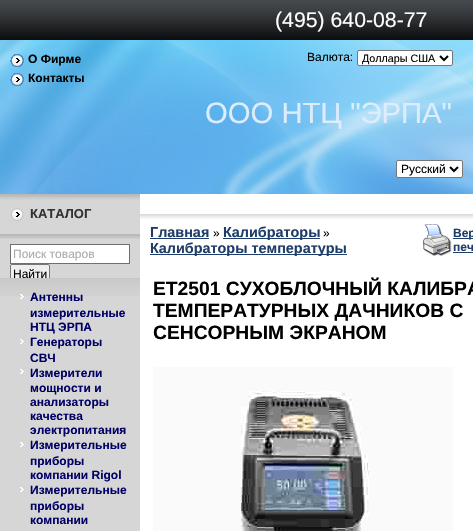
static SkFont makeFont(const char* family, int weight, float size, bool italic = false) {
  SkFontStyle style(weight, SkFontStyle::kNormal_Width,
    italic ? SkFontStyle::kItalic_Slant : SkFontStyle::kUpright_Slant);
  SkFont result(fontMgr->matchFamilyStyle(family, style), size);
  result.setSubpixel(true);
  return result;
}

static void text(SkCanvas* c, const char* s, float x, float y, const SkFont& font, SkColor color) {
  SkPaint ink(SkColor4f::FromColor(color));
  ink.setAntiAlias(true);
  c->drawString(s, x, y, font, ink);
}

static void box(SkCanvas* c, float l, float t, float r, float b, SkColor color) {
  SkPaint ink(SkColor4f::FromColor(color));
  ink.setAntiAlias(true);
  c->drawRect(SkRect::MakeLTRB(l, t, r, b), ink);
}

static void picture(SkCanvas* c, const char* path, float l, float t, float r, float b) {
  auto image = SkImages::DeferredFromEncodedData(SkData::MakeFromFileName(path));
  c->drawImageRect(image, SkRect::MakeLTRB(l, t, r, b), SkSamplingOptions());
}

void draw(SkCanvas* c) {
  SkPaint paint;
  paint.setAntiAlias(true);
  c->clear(0xffffffff);
  picture(c, "img_01.png", 0, 0, 473, 40);
  SkFont face1 = makeFont("Liberation Sans", 400, 21.25f);
  text(c, "(495) 640-08-77", 275, 27, face1, 0xffffffff);
  picture(c, "img_02.png", 0, 40, 473, 194);
  picture(c, "img_03.png", 10, 54, 24, 67);
  SkFont face2 = makeFont("Liberation Sans", 700, 12);
  text(c, "О Фирме", 28, 63, face2, 0xff000000);
  picture(c, "img_04.png", 10, 73, 24, 86);
  text(c, "Контакты", 28, 82, face2, 0xff000000);
  SkFont face3 = makeFont("Liberation Sans", 400, 12);
  text(c, "Валюта:", 307, 61, face3, 0xff000000);
  paint.setColor(0xffffffff);
  c->drawRoundRect(SkRect::MakeLTRB(357.5f, 50.5f, 452.5f, 65.5f), 1.5f, 1.5f, paint);
  paint.setStyle(SkPaint::kStroke_Style);
  paint.setStrokeWidth(1);
  paint.setColor(0xff767676);
  c->drawRoundRect(SkRect::MakeLTRB(357.5f, 50.5f, 452.5f, 65.5f), 1.5f, 1.5f, paint);
  paint.setStrokeWidth(2);
  paint.setColor(0xff000000);
  c->drawPath(SkPathBuilder().moveTo(440, 56).lineTo(444, 60).lineTo(448, 56).detach(), paint);
  SkFont face4 = makeFont("Liberation Sans", 400, 10.75f);
  text(c, "Доллары США", 362, 62, face4, 0xff000000);
  SkFont face5 = makeFont("Liberation Sans", 400, 29.25f);
  text(c, "ООО НТЦ \"ЭРПА\"", 205, 123, face5, 0xffdeedfd);
  paint.setStyle(SkPaint::kFill_Style);
  paint.setColor(0xffffffff);
  c->drawRoundRect(SkRect::MakeLTRB(396.5f, 160.5f, 462.5f, 177.5f), 1.5f, 1.5f, paint);
  paint.setStyle(SkPaint::kStroke_Style);
  paint.setStrokeWidth(1);
  paint.setColor(0xff767676);
  c->drawRoundRect(SkRect::MakeLTRB(396.5f, 160.5f, 462.5f, 177.5f), 1.5f, 1.5f, paint);
  paint.setStrokeWidth(2);
  paint.setColor(0xff000000);
  c->drawPath(SkPathBuilder().moveTo(450, 167).lineTo(454, 171).lineTo(458, 167).detach(), paint);
  text(c, "Русский", 401, 173, face3, 0xff000000);
  picture(c, "img_05.png", 0, 194, 140, 234);
  picture(c, "img_06.png", 10, 208, 24, 221);
  SkFont face6 = makeFont("Liberation Sans", 700, 13);
  text(c, "КАТАЛОГ", 30, 218, face6, 0xff333333);
  box(c, 0, 239, 140, 278, 0xffd6d6d6);
  picture(c, "img_07.png", 0, 234, 140, 239);
  box(c, 0, 278, 140, 279, 0xffc6c6c6);
  paint.setStyle(SkPaint::kFill_Style);
  paint.setColor(0xffffffff);
  c->drawRect(SkRect::MakeLTRB(10.5f, 244.5f, 129.5f, 263.5f), paint);
  paint.setStyle(SkPaint::kStroke_Style);
  paint.setStrokeWidth(1);
  paint.setColor(0xff707070);
  c->drawRect(SkRect::MakeLTRB(10.5f, 244.5f, 129.5f, 263.5f), paint);
  text(c, "Поиск товаров", 13, 258, face3, 0xffaaaaaa);
  paint.setStyle(SkPaint::kFill_Style);
  paint.setColor(0xffefefef);
  c->drawPath(SkPathBuilder().moveTo(12, 264).lineTo(48, 264).cubicTo(49, 264, 50, 265, 50, 266).lineTo(50, 278).lineTo(10, 278).lineTo(10, 266).cubicTo(10, 265, 11, 264, 12, 264).close().detach(), paint);
  picture(c, "img_08.png", 0, 279, 140, 296);
  c->save();
  c->clipRect(SkRect::MakeLTRB(0, 234, 140, 278));
  paint.setStyle(SkPaint::kStroke_Style);
  paint.setColor(0xff767676);
  c->drawRoundRect(SkRect::MakeLTRB(10.5f, 264.5f, 49.5f, 283.5f), 1.5f, 1.5f, paint);
  c->restore();
  text(c, "Найти", 13, 278, face3, 0xff000000);
  box(c, 0, 296, 140, 531, 0xffd6d6d6);
  picture(c, "img_09.png", 20, 294, 24, 299);
  text(c, "Антенны", 30, 301, face2, 0xff000066);
  text(c, "измерительные", 30, 317, face2, 0xff000066);
  text(c, "НТЦ ЭРПА", 30, 331, face2, 0xff000066);
  picture(c, "img_10.png", 20, 339, 24, 344);
  text(c, "Генераторы", 30, 346, face2, 0xff000066);
  text(c, "СВЧ", 30, 362, face2, 0xff000066);
  picture(c, "img_10.png", 20, 369, 24, 374);
  text(c, "Измерители", 30, 377, face2, 0xff000066);
  text(c, "мощности и", 30, 392, face2, 0xff000066);
  text(c, "анализаторы", 30, 406, face2, 0xff000066);
  text(c, "качества", 30, 420, face2, 0xff000066);
  text(c, "электропитания", 30, 434, face2, 0xff000066);
  picture(c, "img_10.png", 20, 442, 24, 447);
  text(c, "Измерительные", 30, 449, face2, 0xff000066);
  text(c, "приборы", 30, 465, face2, 0xff000066);
  text(c, "компании Rigol", 30, 479, face2, 0xff000066);
  picture(c, "img_10.png", 20, 487, 24, 492);
  text(c, "Измерительные", 30, 494, face2, 0xff000066);
  text(c, "приборы", 30, 510, face2, 0xff000066);
  text(c, "компании", 30, 524, face2, 0xff000066);
  picture(c, "img_11.png", 140, 214, 473, 219);
  SkFont face7 = makeFont("Liberation Sans", 700, 14.4f);
  text(c, "Главная", 150, 237, face7, 0xff1f3d6a);
  box(c, 150, 238, 209, 239, 0xff1f3d6a);
  text(c, "»", 213, 237, face3, 0xff000000);
  box(c, 223, 238, 320, 239, 0xff1f3d6a);
  text(c, "Калибраторы", 223, 237, face7, 0xff1f3d6a);
  text(c, "»", 323, 237, face3, 0xff000000);
  box(c, 150, 254, 347, 255, 0xff1f3d6a);
  text(c, "Калибраторы температуры", 150, 253, face7, 0xff1f3d6a);
  picture(c, "img_12.png", 423, 224, 452, 256);
  box(c, 453, 238, 473, 239, 0xff1f3d6a);
  text(c, "Вер", 453, 237, face2, 0xff1f3d6a);
  text(c, "печ", 453, 251, face2, 0xff1f3d6a);
  box(c, 453, 252, 473, 253, 0xff1f3d6a);
  SkFont face8 = makeFont("Liberation Sans", 700, 19.25f);
  text(c, "ET2501 СУХОБЛОЧНЫЙ КАЛИБРА", 153, 295, face8, 0xff000000);
  text(c, "ТЕМПЕРАТУРНЫХ ДАЧНИКОВ С", 153, 317, face8, 0xff000000);
  text(c, "СЕНСОРНЫМ ЭКРАНОМ", 153, 339, face8, 0xff000000);
  picture(c, "img_13.png", 153, 367, 453, 531);
}
